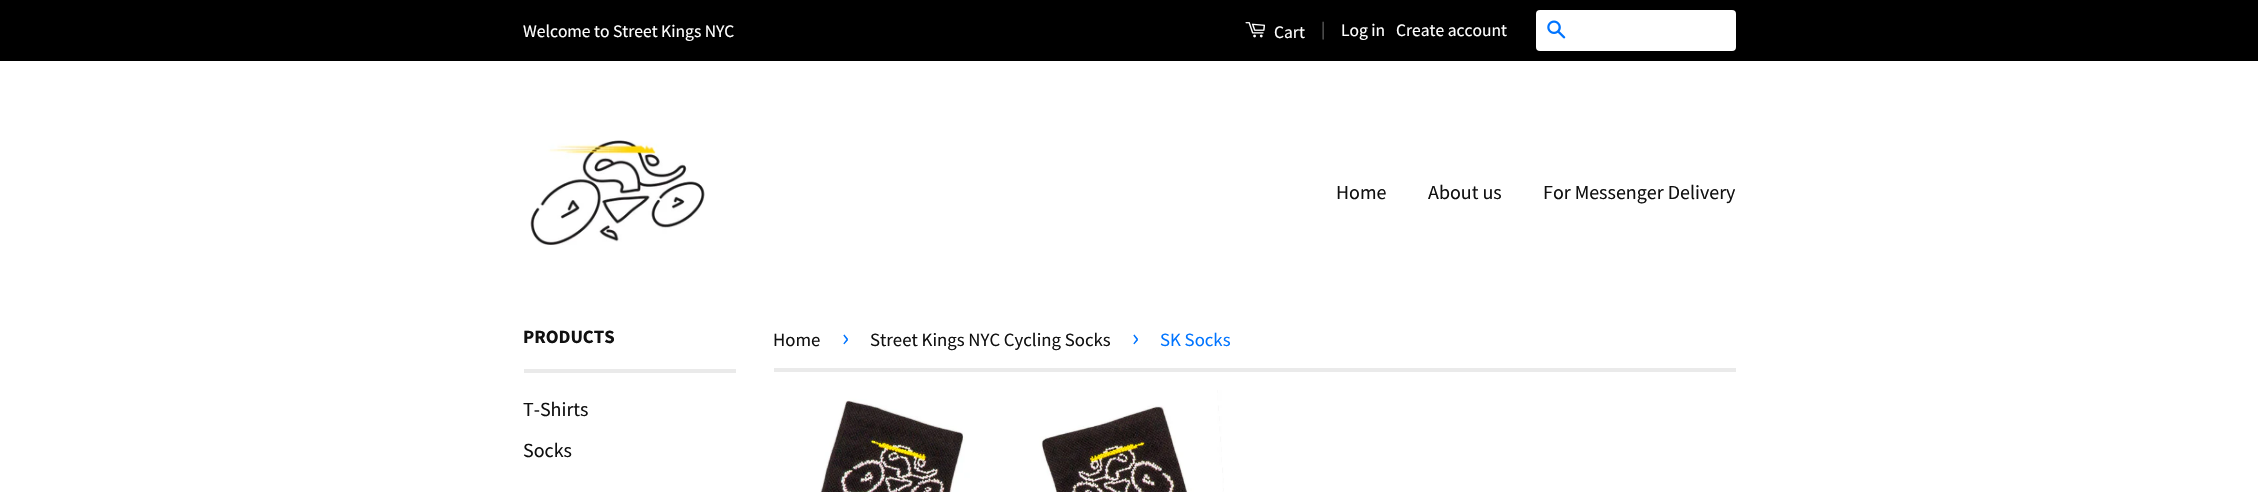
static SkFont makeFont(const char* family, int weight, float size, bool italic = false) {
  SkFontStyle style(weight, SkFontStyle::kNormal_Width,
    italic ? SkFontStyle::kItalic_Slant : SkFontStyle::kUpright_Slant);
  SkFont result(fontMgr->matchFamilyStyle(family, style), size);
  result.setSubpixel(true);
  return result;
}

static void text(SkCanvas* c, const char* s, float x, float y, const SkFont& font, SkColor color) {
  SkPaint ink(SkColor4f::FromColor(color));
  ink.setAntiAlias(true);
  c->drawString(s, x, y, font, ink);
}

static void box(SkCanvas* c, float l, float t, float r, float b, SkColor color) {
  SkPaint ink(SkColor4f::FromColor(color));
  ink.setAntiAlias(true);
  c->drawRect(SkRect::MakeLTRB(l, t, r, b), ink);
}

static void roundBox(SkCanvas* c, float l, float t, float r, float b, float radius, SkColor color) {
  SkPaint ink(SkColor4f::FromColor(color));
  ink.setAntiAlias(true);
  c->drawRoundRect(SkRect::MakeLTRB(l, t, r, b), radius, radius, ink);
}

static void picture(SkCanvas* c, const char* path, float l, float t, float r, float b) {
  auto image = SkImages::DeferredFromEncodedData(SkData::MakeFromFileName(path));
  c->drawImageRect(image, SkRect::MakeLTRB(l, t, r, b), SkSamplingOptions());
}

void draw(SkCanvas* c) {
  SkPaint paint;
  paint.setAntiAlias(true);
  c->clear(0xffffffff);
  box(c, 0, 0, 2258, 61, 0xff000000);
  SkFont face1 = makeFont("Source Sans Pro", 400, 17.5f);
  text(c, "Welcome to Street Kings NYC", 523, 37, face1, 0xffffffff);
  picture(c, "img_01.png", 1245, 22, 1265, 38);
  text(c, "Cart", 1274, 38, face1, 0xffffffff);
  text(c, "|", 1321, 35, face1, 0xff666666);
  text(c, "Log in", 1341, 36, face1, 0xffffffff);
  text(c, "Create account", 1396, 36, face1, 0xffffffff);
  roundBox(c, 1536, 10, 1736, 51, 4, 0xffffffff);
  picture(c, "img_02.png", 1547, 20, 1566, 39);
  picture(c, "img_03.png", 530, 140, 705, 245);
  SkFont face2 = makeFont("Source Sans Pro", 400, 20);
  text(c, "Home", 1336, 199, face2, 0xff111111);
  text(c, "About us", 1428, 199, face2, 0xff111111);
  text(c, "For Messenger Delivery", 1543, 199, face2, 0xff111111);
  box(c, 524, 369, 736, 373, 0xffeaeaea);
  SkFont face3 = makeFont("Source Sans Pro", 700, 18.75f);
  text(c, "PRODUCTS", 523, 343, face3, 0xff111111);
  text(c, "T-Shirts", 523, 416, face2, 0xff111111);
  text(c, "Socks", 523, 457, face2, 0xff111111);
  box(c, 774, 368, 1736, 372, 0xffeaeaea);
  SkFont face4 = makeFont("Source Sans Pro", 400, 18.75f);
  text(c, "Home", 773, 346, face4, 0xff111111);
  SkFont face5 = makeFont("Source Sans Pro", 400, 26);
  text(c, "›", 842, 346, face5, 0xff0074ff);
  text(c, "Street Kings NYC Cycling Socks", 870, 346, face4, 0xff111111);
  text(c, "›", 1132, 346, face5, 0xff0074ff);
  text(c, "SK Socks", 1160, 346, face4, 0xff0074ff);
  picture(c, "img_04.png", 820, 390, 1224, 492);
}
